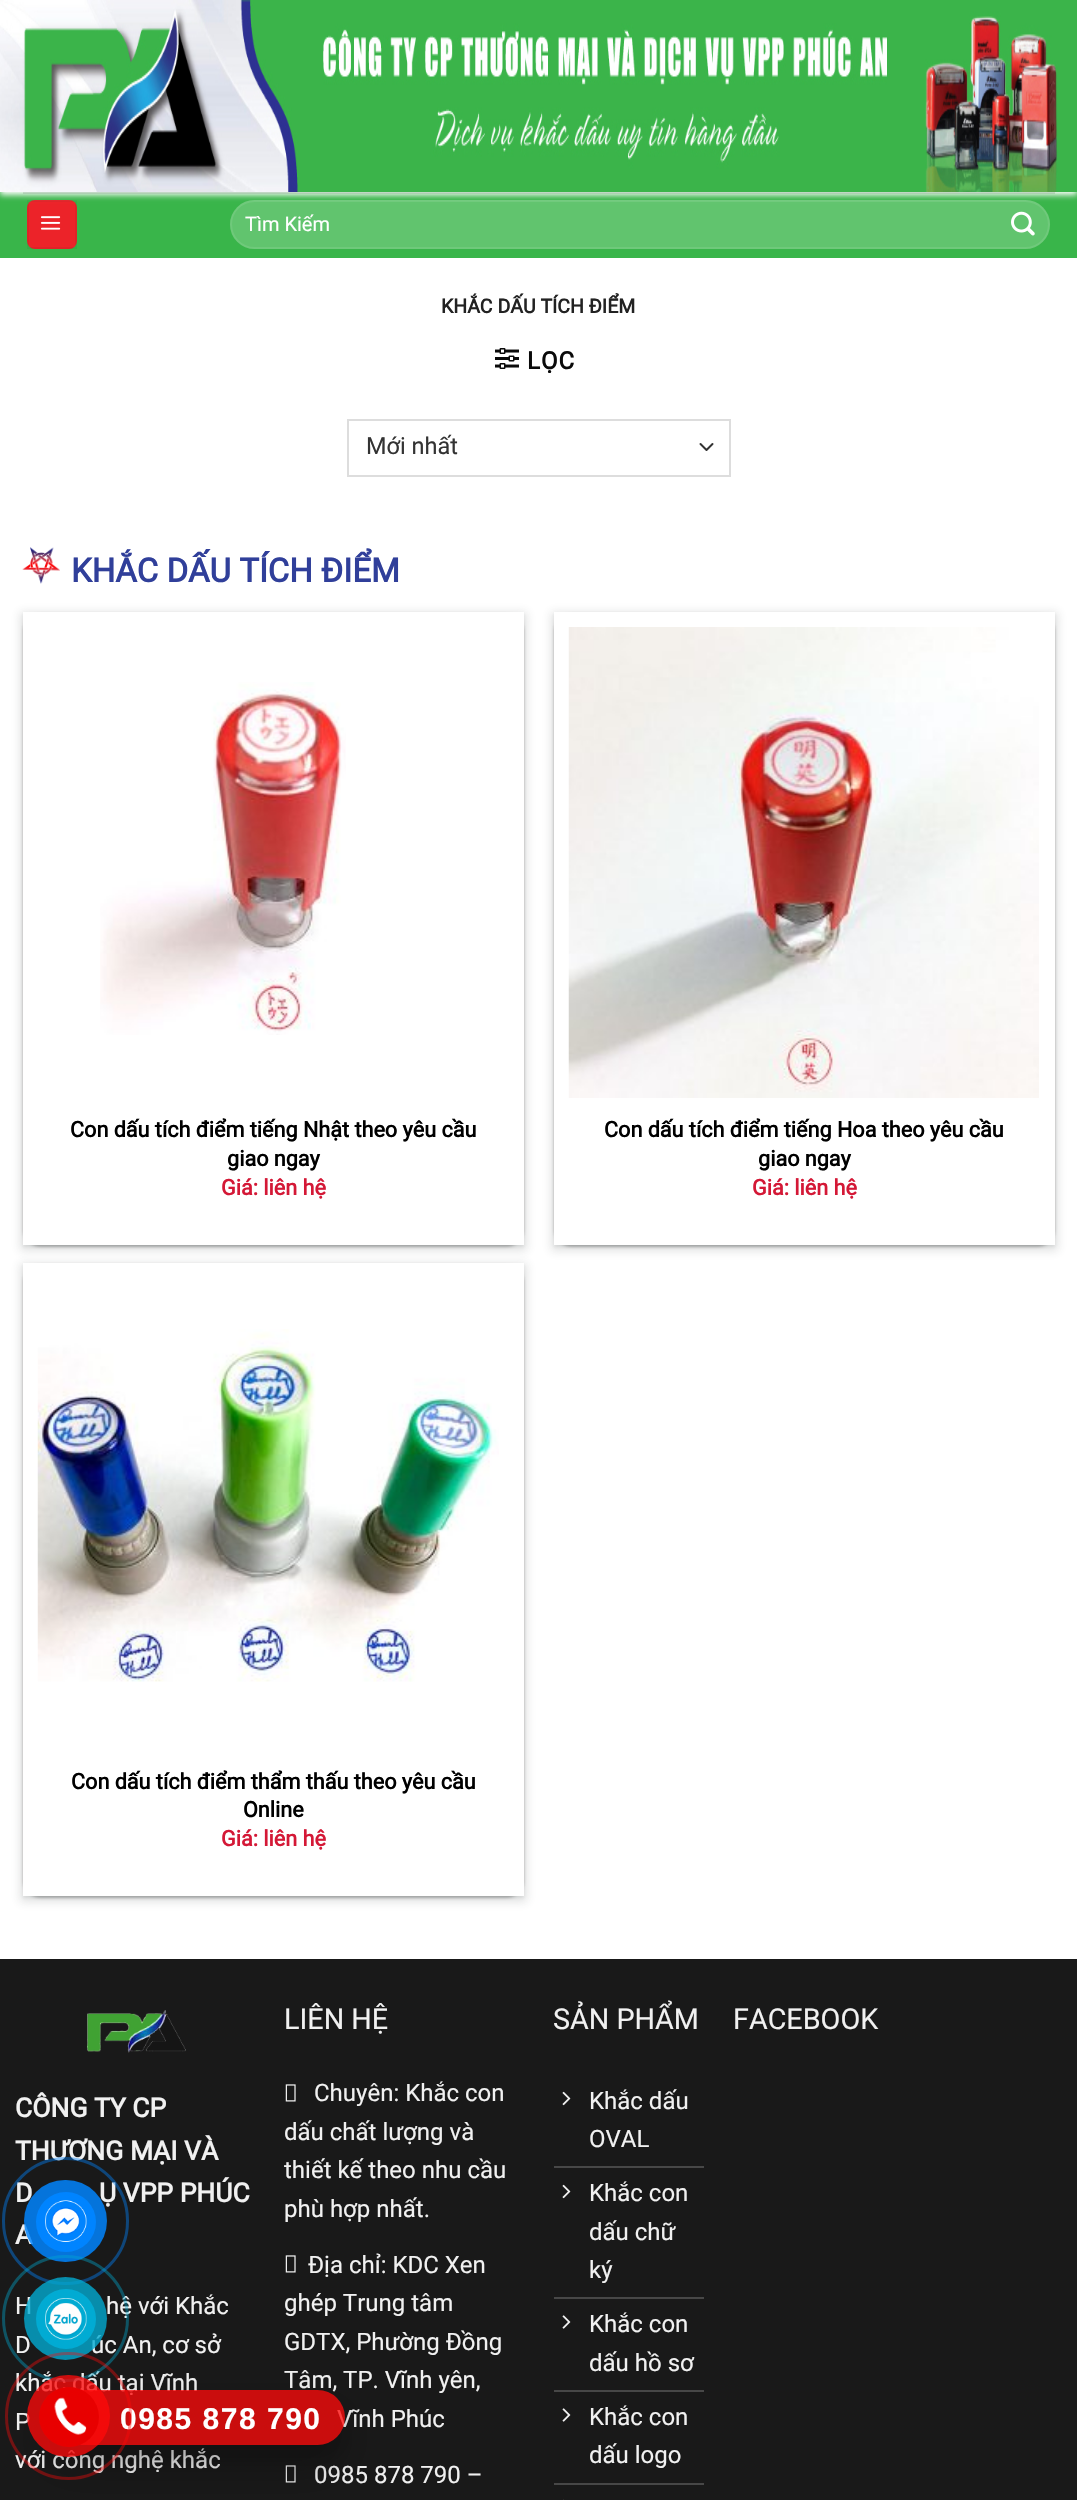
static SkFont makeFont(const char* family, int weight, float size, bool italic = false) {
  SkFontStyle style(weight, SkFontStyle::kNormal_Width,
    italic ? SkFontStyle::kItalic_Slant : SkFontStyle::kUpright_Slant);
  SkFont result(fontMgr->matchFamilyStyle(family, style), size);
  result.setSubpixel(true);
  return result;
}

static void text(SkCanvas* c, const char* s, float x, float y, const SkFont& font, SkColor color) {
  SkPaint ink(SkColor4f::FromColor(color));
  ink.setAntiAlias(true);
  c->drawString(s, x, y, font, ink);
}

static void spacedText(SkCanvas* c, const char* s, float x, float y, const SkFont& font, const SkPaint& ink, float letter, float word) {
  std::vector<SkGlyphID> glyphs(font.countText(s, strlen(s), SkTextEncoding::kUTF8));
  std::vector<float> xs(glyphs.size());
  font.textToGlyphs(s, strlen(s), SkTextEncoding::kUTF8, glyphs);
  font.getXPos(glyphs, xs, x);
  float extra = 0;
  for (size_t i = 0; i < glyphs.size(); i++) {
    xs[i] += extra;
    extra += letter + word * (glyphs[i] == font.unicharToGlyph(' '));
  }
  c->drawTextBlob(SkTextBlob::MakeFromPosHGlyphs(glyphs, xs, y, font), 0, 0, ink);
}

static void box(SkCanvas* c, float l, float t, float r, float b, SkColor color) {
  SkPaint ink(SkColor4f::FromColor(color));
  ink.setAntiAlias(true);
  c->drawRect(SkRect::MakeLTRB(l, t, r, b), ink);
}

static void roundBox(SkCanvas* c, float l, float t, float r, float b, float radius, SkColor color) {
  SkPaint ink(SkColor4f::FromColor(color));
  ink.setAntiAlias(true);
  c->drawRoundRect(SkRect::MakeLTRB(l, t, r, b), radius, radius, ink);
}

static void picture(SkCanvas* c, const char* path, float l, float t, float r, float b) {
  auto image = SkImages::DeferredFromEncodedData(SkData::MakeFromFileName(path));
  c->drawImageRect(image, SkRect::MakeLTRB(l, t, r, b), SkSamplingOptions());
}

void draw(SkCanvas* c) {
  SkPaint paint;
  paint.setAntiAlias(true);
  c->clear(0xffffffff);
  box(c, 0, 192, 1077, 258, 0xff39b54a);
  roundBox(c, 27, 200, 77, 249, 8, 0xffec2329);
  paint.setStyle(SkPaint::kStroke_Style);
  paint.setStrokeWidth(2);
  paint.setColor(0x0d000000);
  c->drawRect(SkRect::MakeLTRB(28, 201, 76, 248), paint);
  roundBox(c, 230, 200, 1050, 249, 24.5f, 0xff61c46e);
  paint.setColor(0x17ffffff);
  c->drawRoundRect(SkRect::MakeLTRB(231, 201, 1049, 248), 23.5f, 23.5f, paint);
  paint.setStyle(SkPaint::kFill_Style);
  paint.setColor(0xffffffff);
  paint.setMaskFilter(SkMaskFilter::MakeBlur(kNormal_SkBlurStyle, 3));
  c->drawRect(SkRect::MakeLTRB(0, 3, 1077, 195), paint);
  paint.setMaskFilter(nullptr);
  picture(c, "img_01.png", 0, 0, 1077, 192);
  box(c, 23, 192, 1055, 194, 0x1a0a0a0a);
  picture(c, "img_02.png", 40, 216, 61, 230);
  SkFont face1 = makeFont("Roboto", 400, 20);
  text(c, "Tìm Kiếm", 245, 231, face1, 0xffffffff);
  picture(c, "img_03.png", 1011, 211, 1035, 236);
  SkFont face2 = makeFont("Roboto", 700, 19.5f);
  text(c, "KHẮC DẤU TÍCH ĐIỂM", 441, 313, face2, 0xff222222);
  picture(c, "img_04.png", 495, 348, 519, 369);
  SkFont face3 = makeFont("Roboto", 700, 24);
  paint.setColor(0xff0a0a0a);
  spacedText(c, "LỌC", 527, 369, face3, paint, 1, 0);
  paint.setStyle(SkPaint::kStroke_Style);
  paint.setStrokeCap(SkPaint::kRound_Cap);
  paint.setStrokeJoin(SkPaint::kRound_Join);
  paint.setColor(0xff333333);
  c->drawPath(SkPathBuilder().moveTo(700.5f, 444).lineTo(706.5f, 450).lineTo(712.5f, 444).detach(), paint);
  paint.setStrokeCap(SkPaint::kButt_Cap);
  paint.setStrokeJoin(SkPaint::kMiter_Join);
  paint.setColor(0xffdddddd);
  c->drawRect(SkRect::MakeLTRB(348, 420, 730, 476), paint);
  SkFont face4 = makeFont("Roboto", 400, 23.5f);
  text(c, "Mới nhất", 366, 454, face4, 0xff333333);
  picture(c, "img_05.png", 22, 547, 60, 584);
  SkFont face5 = makeFont("Roboto", 700, 33);
  text(c, "KHẮC DẤU TÍCH ĐIỂM", 71, 582, face5, 0xff303f9a);
  paint.setStyle(SkPaint::kFill_Style);
  paint.setColor(0x3d000000);
  paint.setMaskFilter(SkMaskFilter::MakeBlur(kNormal_SkBlurStyle, 1.5f));
  c->drawRoundRect(SkRect::MakeLTRB(23, 614, 524, 1247), 18, 18, paint);
  paint.setMaskFilter(nullptr);
  paint.setColor(0x1f000000);
  paint.setMaskFilter(SkMaskFilter::MakeBlur(kNormal_SkBlurStyle, 2));
  c->drawRoundRect(SkRect::MakeLTRB(26, 617, 521, 1244), 15, 15, paint);
  paint.setMaskFilter(nullptr);
  paint.setColor(0x263c4043);
  paint.setMaskFilter(SkMaskFilter::MakeBlur(kNormal_SkBlurStyle, 4.5f));
  c->drawRect(SkRect::MakeLTRB(20, 612, 527, 1251), paint);
  paint.setMaskFilter(nullptr);
  paint.setColor(0x1a3c4043);
  paint.setMaskFilter(SkMaskFilter::MakeBlur(kNormal_SkBlurStyle, 1.5f));
  c->drawRect(SkRect::MakeLTRB(23, 614, 524, 1247), paint);
  paint.setMaskFilter(nullptr);
  box(c, 23, 612, 524, 1245, 0xffffffff);
  picture(c, "img_06.png", 100, 682, 346, 1035);
  SkFont face6 = makeFont("Roboto", 700, 21.6f);
  text(c, "Con dấu tích điểm tiếng Nhật theo yêu cầu", 70, 1137, face6, 0xff000000);
  text(c, "giao ngay", 227, 1166, face6, 0xff000000);
  text(c, "Giá: liên hệ", 221, 1195, face6, 0xffd41836);
  paint.setColor(0x3d000000);
  paint.setMaskFilter(SkMaskFilter::MakeBlur(kNormal_SkBlurStyle, 1.5f));
  c->drawRoundRect(SkRect::MakeLTRB(554, 614, 1055, 1247), 18, 18, paint);
  paint.setMaskFilter(nullptr);
  paint.setColor(0x1f000000);
  paint.setMaskFilter(SkMaskFilter::MakeBlur(kNormal_SkBlurStyle, 2));
  c->drawRoundRect(SkRect::MakeLTRB(557, 617, 1052, 1244), 15, 15, paint);
  paint.setMaskFilter(nullptr);
  paint.setColor(0x263c4043);
  paint.setMaskFilter(SkMaskFilter::MakeBlur(kNormal_SkBlurStyle, 4.5f));
  c->drawRect(SkRect::MakeLTRB(551, 612, 1058, 1251), paint);
  paint.setMaskFilter(nullptr);
  paint.setColor(0x1a3c4043);
  paint.setMaskFilter(SkMaskFilter::MakeBlur(kNormal_SkBlurStyle, 1.5f));
  c->drawRect(SkRect::MakeLTRB(554, 614, 1055, 1247), paint);
  paint.setMaskFilter(nullptr);
  box(c, 554, 612, 1055, 1245, 0xffffffff);
  picture(c, "img_07.png", 568, 627, 1039, 1098);
  text(c, "Con dấu tích điểm tiếng Hoa theo yêu cầu", 604, 1137, face6, 0xff000000);
  text(c, "giao ngay", 758, 1166, face6, 0xff000000);
  text(c, "Giá: liên hệ", 752, 1195, face6, 0xffd41836);
  paint.setColor(0x3d000000);
  paint.setMaskFilter(SkMaskFilter::MakeBlur(kNormal_SkBlurStyle, 1.5f));
  c->drawRoundRect(SkRect::MakeLTRB(23, 1265, 524, 1898), 18, 18, paint);
  paint.setMaskFilter(nullptr);
  paint.setColor(0x1f000000);
  paint.setMaskFilter(SkMaskFilter::MakeBlur(kNormal_SkBlurStyle, 2));
  c->drawRoundRect(SkRect::MakeLTRB(26, 1268, 521, 1895), 15, 15, paint);
  paint.setMaskFilter(nullptr);
  paint.setColor(0x263c4043);
  paint.setMaskFilter(SkMaskFilter::MakeBlur(kNormal_SkBlurStyle, 4.5f));
  c->drawRect(SkRect::MakeLTRB(20, 1263, 527, 1902), paint);
  paint.setMaskFilter(nullptr);
  paint.setColor(0x1a3c4043);
  paint.setMaskFilter(SkMaskFilter::MakeBlur(kNormal_SkBlurStyle, 1.5f));
  c->drawRect(SkRect::MakeLTRB(23, 1265, 524, 1898), paint);
  paint.setMaskFilter(nullptr);
  box(c, 23, 1263, 524, 1896, 0xffffffff);
  picture(c, "img_08.png", 37, 1329, 499, 1682);
  text(c, "Con dấu tích điểm thẩm thấu theo yêu cầu", 71, 1789, face6, 0xff000000);
  text(c, "Online", 243, 1817, face6, 0xff000000);
  text(c, "Giá: liên hệ", 221, 1846, face6, 0xffd41836);
  box(c, 0, 1959, 1077, 2500, 0xff191919);
  SkFont face7 = makeFont("Roboto", 400, 28.75f);
  text(c, "LIÊN HỆ", 284, 2029, face7, 0xfff1f1f1);
  picture(c, "img_09.png", 285, 2084, 296, 2102);
  SkFont face8 = makeFont("Roboto", 400, 24);
  text(c, "Chuyên: Khắc con", 314, 2101, face8, 0xfff1f1f1);
  text(c, "dấu chất lượng và", 284, 2140, face8, 0xfff1f1f1);
  text(c, "thiết kế theo nhu cầu", 284, 2178, face8, 0xfff1f1f1);
  text(c, "phù hợp nhất.", 284, 2217, face8, 0xfff1f1f1);
  picture(c, "img_09.png", 285, 2255, 296, 2273);
  text(c, "Địa chỉ: KDC Xen", 308, 2273, face8, 0xfff1f1f1);
  text(c, "ghép Trung tâm", 284, 2311, face8, 0xfff1f1f1);
  text(c, "GDTX, Phường Đồng", 284, 2350, face8, 0xfff1f1f1);
  text(c, "Tâm, TP. Vĩnh yên,", 284, 2388, face8, 0xfff1f1f1);
  text(c, "Vĩnh Phúc", 337, 2427, face8, 0xfff1f1f1);
  picture(c, "img_09.png", 285, 2465, 296, 2483);
  text(c, "0985 878 790 –", 314, 2483, face8, 0xfff1f1f1);
  text(c, "SẢN PHẨM", 553, 2029, face7, 0xfff1f1f1);
  box(c, 554, 2166, 704, 2168, 0xff474747);
  picture(c, "img_10.png", 562, 2091, 571, 2106);
  text(c, "Khắc dấu", 589, 2109, face8, 0xfff1f1f1);
  text(c, "OVAL", 589, 2147, face8, 0xfff1f1f1);
  box(c, 554, 2297, 704, 2299, 0xff474747);
  picture(c, "img_10.png", 562, 2184, 571, 2199);
  text(c, "Khắc con", 589, 2201, face8, 0xfff1f1f1);
  text(c, "dấu chữ", 589, 2240, face8, 0xfff1f1f1);
  text(c, "ký", 589, 2278, face8, 0xfff1f1f1);
  box(c, 554, 2390, 704, 2392, 0xff474747);
  picture(c, "img_11.png", 562, 2315, 571, 2329);
  text(c, "Khắc con", 589, 2332, face8, 0xfff1f1f1);
  text(c, "dấu hồ sơ", 589, 2371, face8, 0xfff1f1f1);
  box(c, 554, 2483, 704, 2485, 0xff474747);
  picture(c, "img_11.png", 562, 2408, 571, 2422);
  text(c, "Khắc con", 589, 2425, face8, 0xfff1f1f1);
  text(c, "dấu logo", 589, 2463, face8, 0xfff1f1f1);
  box(c, 563, 2499, 564, 2500, 0xff282828);
  text(c, "FACEBOOK", 733, 2029, face7, 0xfff1f1f1);
  picture(c, "img_12.png", 87, 2010, 186, 2053);
  SkFont face9 = makeFont("Roboto", 700, 26.5f);
  text(c, "CÔNG TY CP", 15, 2117, face9, 0xfff1f1f1);
  text(c, "THƯƠNG MẠI VÀ", 15, 2160, face9, 0xfff1f1f1);
  text(c, "D", 15, 2202, face9, 0xfff1f1f1);
  text(c, "Ụ VPP PHÚC", 99, 2202, face9, 0xfff1f1f1);
  text(c, "A", 15, 2244, face9, 0xfff1f1f1);
  text(c, "H", 15, 2314, face8, 0xfff1f1f1);
  text(c, "hệ với Khắc", 106, 2314, face8, 0xfff1f1f1);
  text(c, "D", 15, 2353, face8, 0xfff1f1f1);
  text(c, "úc An, cơ sở", 91, 2353, face8, 0xfff1f1f1);
  text(c, "khắc dấu tại Vĩnh", 15, 2391, face8, 0xfff1f1f1);
  text(c, "P", 15, 2430, face8, 0xfff1f1f1);
  text(c, "với công nghệ khắc", 15, 2468, face8, 0xfff1f1f1);
  paint.setStyle(SkPaint::kStroke_Style);
  paint.setStrokeWidth(3);
  paint.setColor(0x6b0084ff);
  c->drawRoundRect(SkRect::MakeLTRB(3.5f, 2158.5f, 127.5f, 2283.5f), 62, 62, paint);
  roundBox(c, 24, 2180, 107, 2262, 41, 0xd60084ff);
  paint.setStyle(SkPaint::kFill_Style);
  paint.setColor(0xff0084ff);
  c->drawCircle(66, 2222, 30, paint);
  picture(c, "img_13.png", 45, 2200, 87, 2242);
  c->save();
  c->clipPath(SkPathBuilder(SkPathFillType::kEvenOdd).moveTo(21, 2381).lineTo(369, 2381).lineTo(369, 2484).lineTo(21, 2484).close().moveTo(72.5f, 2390).lineTo(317.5f, 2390).cubicTo(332.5f, 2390, 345, 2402.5f, 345, 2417.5f).cubicTo(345, 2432.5f, 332.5f, 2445, 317.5f, 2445).lineTo(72.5f, 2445).cubicTo(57.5f, 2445, 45, 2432.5f, 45, 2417.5f).cubicTo(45, 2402.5f, 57.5f, 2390, 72.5f, 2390).close().detach(), true);
  paint.setColor(0x1a000000);
  paint.setMaskFilter(SkMaskFilter::MakeBlur(kNormal_SkBlurStyle, 7.5f));
  c->drawRoundRect(SkRect::MakeLTRB(45, 2405, 345, 2460), 27.5f, 27.5f, paint);
  paint.setMaskFilter(nullptr);
  c->restore();
  c->save();
  c->clipPath(SkPathBuilder(SkPathFillType::kEvenOdd).moveTo(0, 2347).lineTo(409, 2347).lineTo(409, 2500).lineTo(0, 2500).close().moveTo(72.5f, 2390).lineTo(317.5f, 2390).cubicTo(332.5f, 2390, 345, 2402.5f, 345, 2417.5f).cubicTo(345, 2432.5f, 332.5f, 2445, 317.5f, 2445).lineTo(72.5f, 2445).cubicTo(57.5f, 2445, 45, 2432.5f, 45, 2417.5f).cubicTo(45, 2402.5f, 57.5f, 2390, 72.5f, 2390).close().detach(), true);
  paint.setColor(0x40000000);
  paint.setMaskFilter(SkMaskFilter::MakeBlur(kNormal_SkBlurStyle, 21));
  c->drawRoundRect(SkRect::MakeLTRB(45, 2411, 345, 2466), 27.5f, 27.5f, paint);
  paint.setMaskFilter(nullptr);
  c->restore();
  paint.setStyle(SkPaint::kStroke_Style);
  paint.setColor(0x6601abd3);
  c->drawCircle(65.5f, 2318.5f, 62, paint);
  paint.setStyle(SkPaint::kFill_Style);
  paint.setColor(0xc901abd3);
  c->drawCircle(65.5f, 2318.5f, 41.5f, paint);
  paint.setColor(0xff01abd3);
  c->drawCircle(66, 2319, 30, paint);
  picture(c, "img_14.png", 45, 2298, 87, 2340);
  roundBox(c, 45, 2390, 345, 2445, 27.5f, 0xc4ff0909);
  SkFont face10 = makeFont("Liberation Sans", 700, 30);
  paint.setColor(0xffffffff);
  spacedText(c, "0985 878 790", 120, 2429, face10, paint, 1.5f, 0);
  paint.setStyle(SkPaint::kStroke_Style);
  paint.setColor(0x63ff0909);
  c->drawRoundRect(SkRect::MakeLTRB(6.5f, 2353.5f, 130.5f, 2478.5f), 62, 62, paint);
  roundBox(c, 27, 2375, 110, 2457, 41, 0xc4ff0909);
  paint.setStyle(SkPaint::kFill_Style);
  paint.setColor(0xffe80000);
  c->drawCircle(69, 2417, 30, paint);
  picture(c, "img_15.png", 54, 2397, 87, 2435);
}
